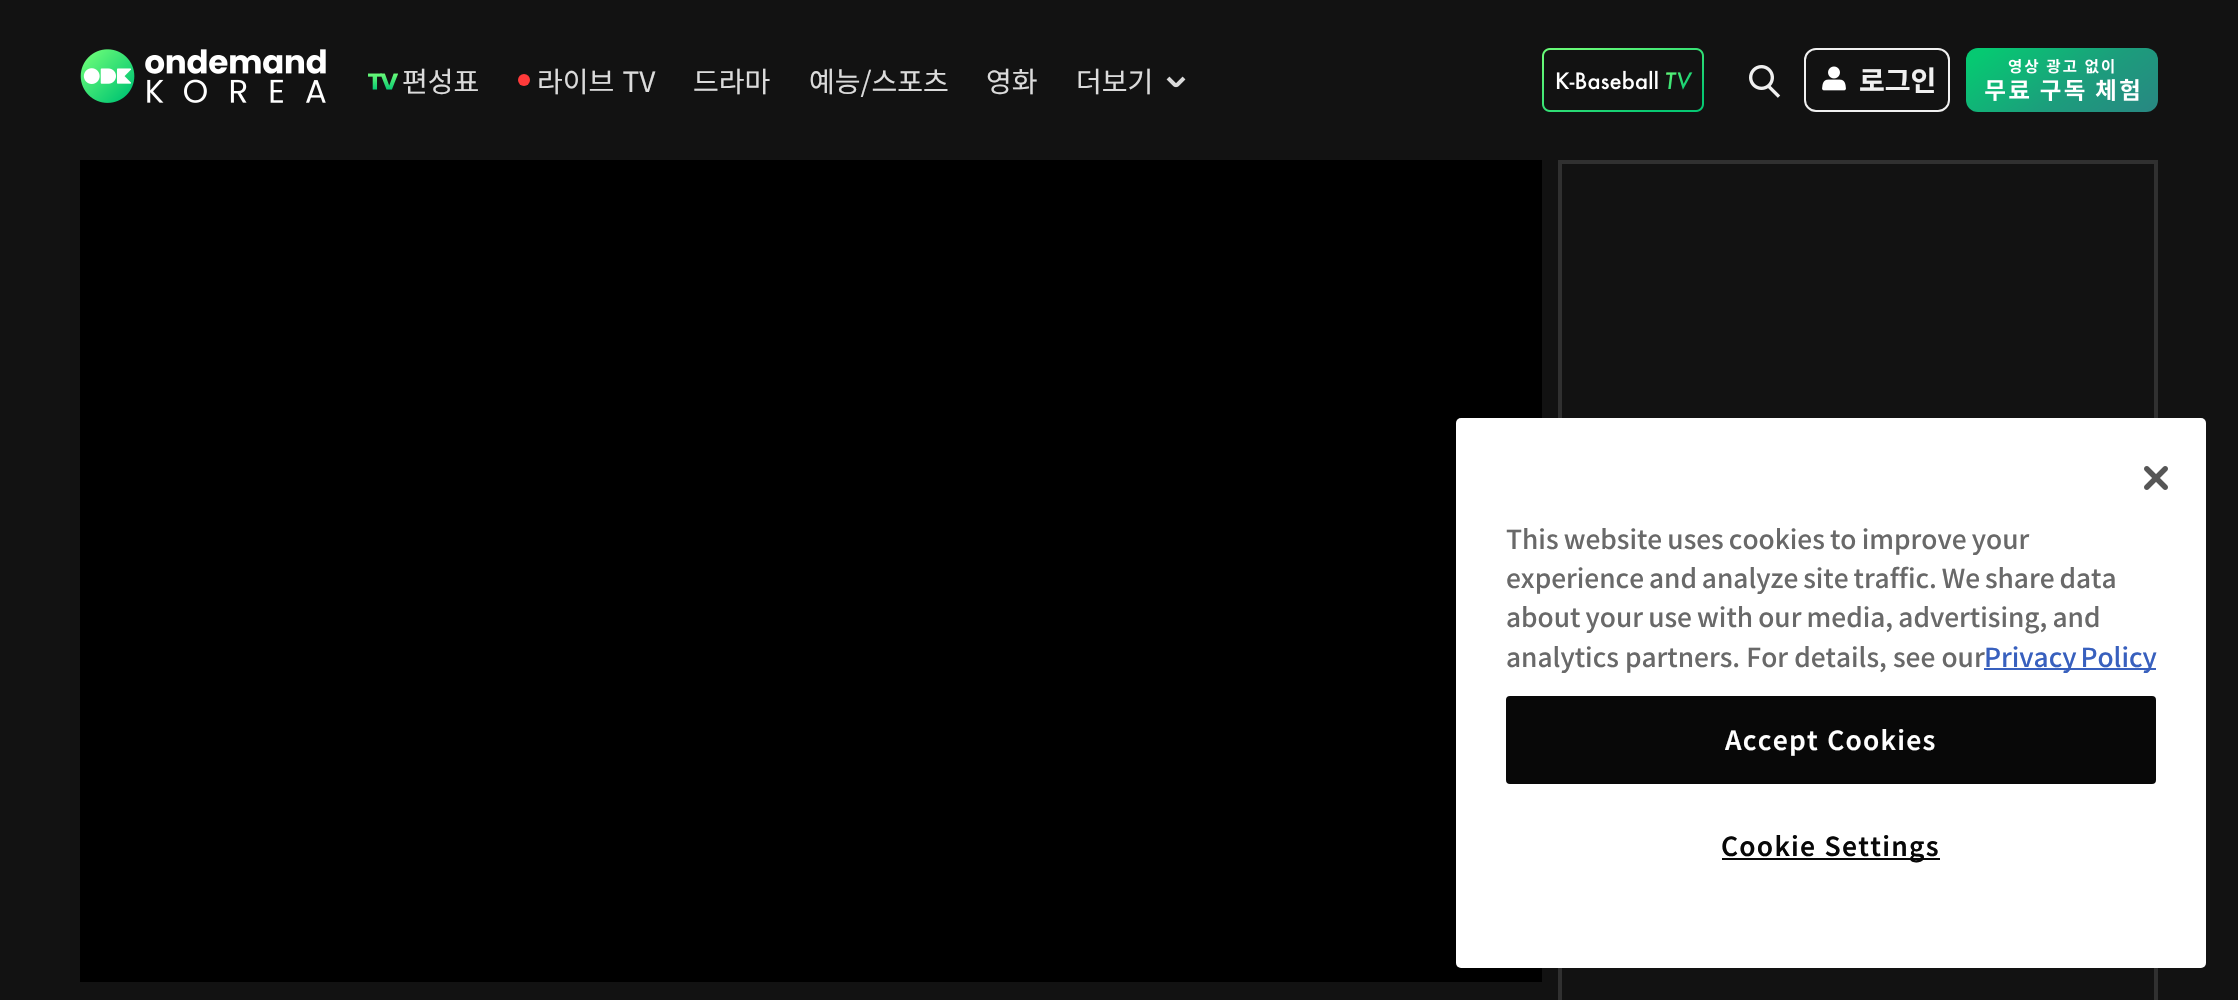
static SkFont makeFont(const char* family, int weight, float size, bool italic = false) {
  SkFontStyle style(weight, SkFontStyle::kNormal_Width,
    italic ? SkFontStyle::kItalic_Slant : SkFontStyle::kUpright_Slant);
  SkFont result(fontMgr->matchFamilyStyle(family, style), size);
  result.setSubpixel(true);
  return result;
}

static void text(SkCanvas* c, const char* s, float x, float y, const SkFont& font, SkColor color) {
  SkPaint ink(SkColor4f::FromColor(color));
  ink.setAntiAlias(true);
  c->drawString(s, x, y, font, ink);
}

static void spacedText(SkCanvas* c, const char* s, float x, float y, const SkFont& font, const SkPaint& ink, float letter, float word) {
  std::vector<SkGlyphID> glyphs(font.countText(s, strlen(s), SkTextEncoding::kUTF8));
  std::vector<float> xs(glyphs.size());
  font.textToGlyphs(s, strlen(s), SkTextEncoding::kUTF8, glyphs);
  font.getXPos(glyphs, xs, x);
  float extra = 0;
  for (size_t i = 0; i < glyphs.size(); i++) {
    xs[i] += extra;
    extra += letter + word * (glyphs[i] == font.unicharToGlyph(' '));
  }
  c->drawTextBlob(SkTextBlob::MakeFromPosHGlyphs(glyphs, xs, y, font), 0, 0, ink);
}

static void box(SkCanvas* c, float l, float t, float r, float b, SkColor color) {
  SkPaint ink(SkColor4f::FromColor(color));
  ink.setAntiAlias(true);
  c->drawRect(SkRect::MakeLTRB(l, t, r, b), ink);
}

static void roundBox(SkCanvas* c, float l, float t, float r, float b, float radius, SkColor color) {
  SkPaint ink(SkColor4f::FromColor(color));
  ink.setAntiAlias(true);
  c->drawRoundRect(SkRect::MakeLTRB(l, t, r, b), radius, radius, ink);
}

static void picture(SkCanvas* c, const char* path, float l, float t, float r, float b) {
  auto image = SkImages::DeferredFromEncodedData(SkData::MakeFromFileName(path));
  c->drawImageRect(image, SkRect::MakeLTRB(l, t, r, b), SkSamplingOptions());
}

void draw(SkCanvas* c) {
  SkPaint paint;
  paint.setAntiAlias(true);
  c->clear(0xff121212);
  picture(c, "img_01.png", 80, 49, 326, 103);
  picture(c, "img_02.png", 368, 73, 398, 90);
  SkFont face1 = makeFont("Noto Sans KR", 400, 28);
  text(c, "편성표", 402, 92, face1, 0xffdbdbdb);
  paint.setColor(0xffff3a3a);
  c->drawCircle(524, 80, 6, paint);
  paint.setColor(0xffdbdbdb);
  spacedText(c, "라이브 TV", 537, 92, face1, paint, 0, 2);
  text(c, "드라마", 693, 92, face1, 0xffdbdbdb);
  text(c, "예능/스포츠", 809, 92, face1, 0xffdbdbdb);
  text(c, "영화", 986, 92, face1, 0xffdbdbdb);
  text(c, "더보기", 1076, 92, face1, 0xffdbdbdb);
  picture(c, "img_03.png", 1166, 76, 1186, 88);
  picture(c, "img_04.png", 1542, 48, 1704, 112);
  picture(c, "img_05.png", 1749, 65, 1781, 98);
  paint.setStyle(SkPaint::kStroke_Style);
  paint.setStrokeWidth(2);
  paint.setColor(0xfff0f0f0);
  c->drawRoundRect(SkRect::MakeLTRB(1805, 49, 1949, 111), 11, 11, paint);
  picture(c, "img_06.png", 1822, 66, 1846, 91);
  SkFont face2 = makeFont("Noto Sans KR", 700, 28);
  text(c, "로그인", 1859, 91, face2, 0xfff0f0f0);
  paint.setStyle(SkPaint::kFill_Style);
  {
    const SkColor colors[] = {0xff06c972, 0xff1c9d7c, 0xff288782};
    const float stops[] = {0.08f, 0.58f, 0.99f};
    const SkPoint ends[] = {{2013, 13}, {2111, 147}};
    paint.setShader(SkGradientShader::MakeLinear(ends, colors, stops, 3, SkTileMode::kClamp));
    paint.setAlpha(255);
  }
  c->drawRoundRect(SkRect::MakeLTRB(1966, 48, 2158, 112), 12, 12, paint);
  picture(c, "img_07.png", 1985, 59, 2139, 101);
  box(c, 80, 160, 1542, 982, 0xff000000);
  paint.setStyle(SkPaint::kStroke_Style);
  paint.setStrokeWidth(4);
  paint.setShader(nullptr);
  paint.setColor(0xff303030);
  c->drawRect(SkRect::MakeLTRB(1560, 162, 2156, 658), paint);
  c->drawRect(SkRect::MakeLTRB(1560, 678, 2156, 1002), paint);
  roundBox(c, 1456, 418, 2206, 968, 5, 0xffffffff);
  picture(c, "img_08.png", 2144, 466, 2168, 490);
  SkFont face3 = makeFont("Noto Sans KR", 500, 26.25f);
  paint.setStyle(SkPaint::kFill_Style);
  paint.setColor(0xff696969);
  spacedText(c, "This website uses cookies to improve your", 1506, 549, face3, paint, 0, -0.75f);
  spacedText(c, "experience and analyze site traffic. We share data", 1506, 588, face3, paint, 0, -1);
  spacedText(c, "about your use with our media, advertising, and", 1506, 627, face3, paint, 0, -0.75f);
  spacedText(c, "analytics partners. For details, see our", 1506, 667, face3, paint, 0, 0.25f);
  box(c, 1984, 668, 2156, 670, 0xff3860be);
  paint.setColor(0xff3860be);
  spacedText(c, "Privacy Policy", 1984, 667, face3, paint, 0, -2);
  paint.setColor(0xff080808);
  c->drawRoundRect(SkRect::MakeLTRB(1507, 697, 2155, 783), 3, 3, paint);
  paint.setStyle(SkPaint::kStroke_Style);
  paint.setStrokeWidth(2);
  c->drawRoundRect(SkRect::MakeLTRB(1507, 697, 2155, 783), 3, 3, paint);
  SkFont face4 = makeFont("Noto Sans KR", 600, 26.25f);
  paint.setStyle(SkPaint::kFill_Style);
  paint.setColor(0xffffffff);
  spacedText(c, "Accept Cookies", 1725, 750, face4, paint, 1.25f, 1);
  box(c, 1722, 858, 1940, 860, 0xff080808);
  paint.setColor(0xff080808);
  spacedText(c, "Cookie Settings", 1721, 856, face4, paint, 1.25f, 1);
}
